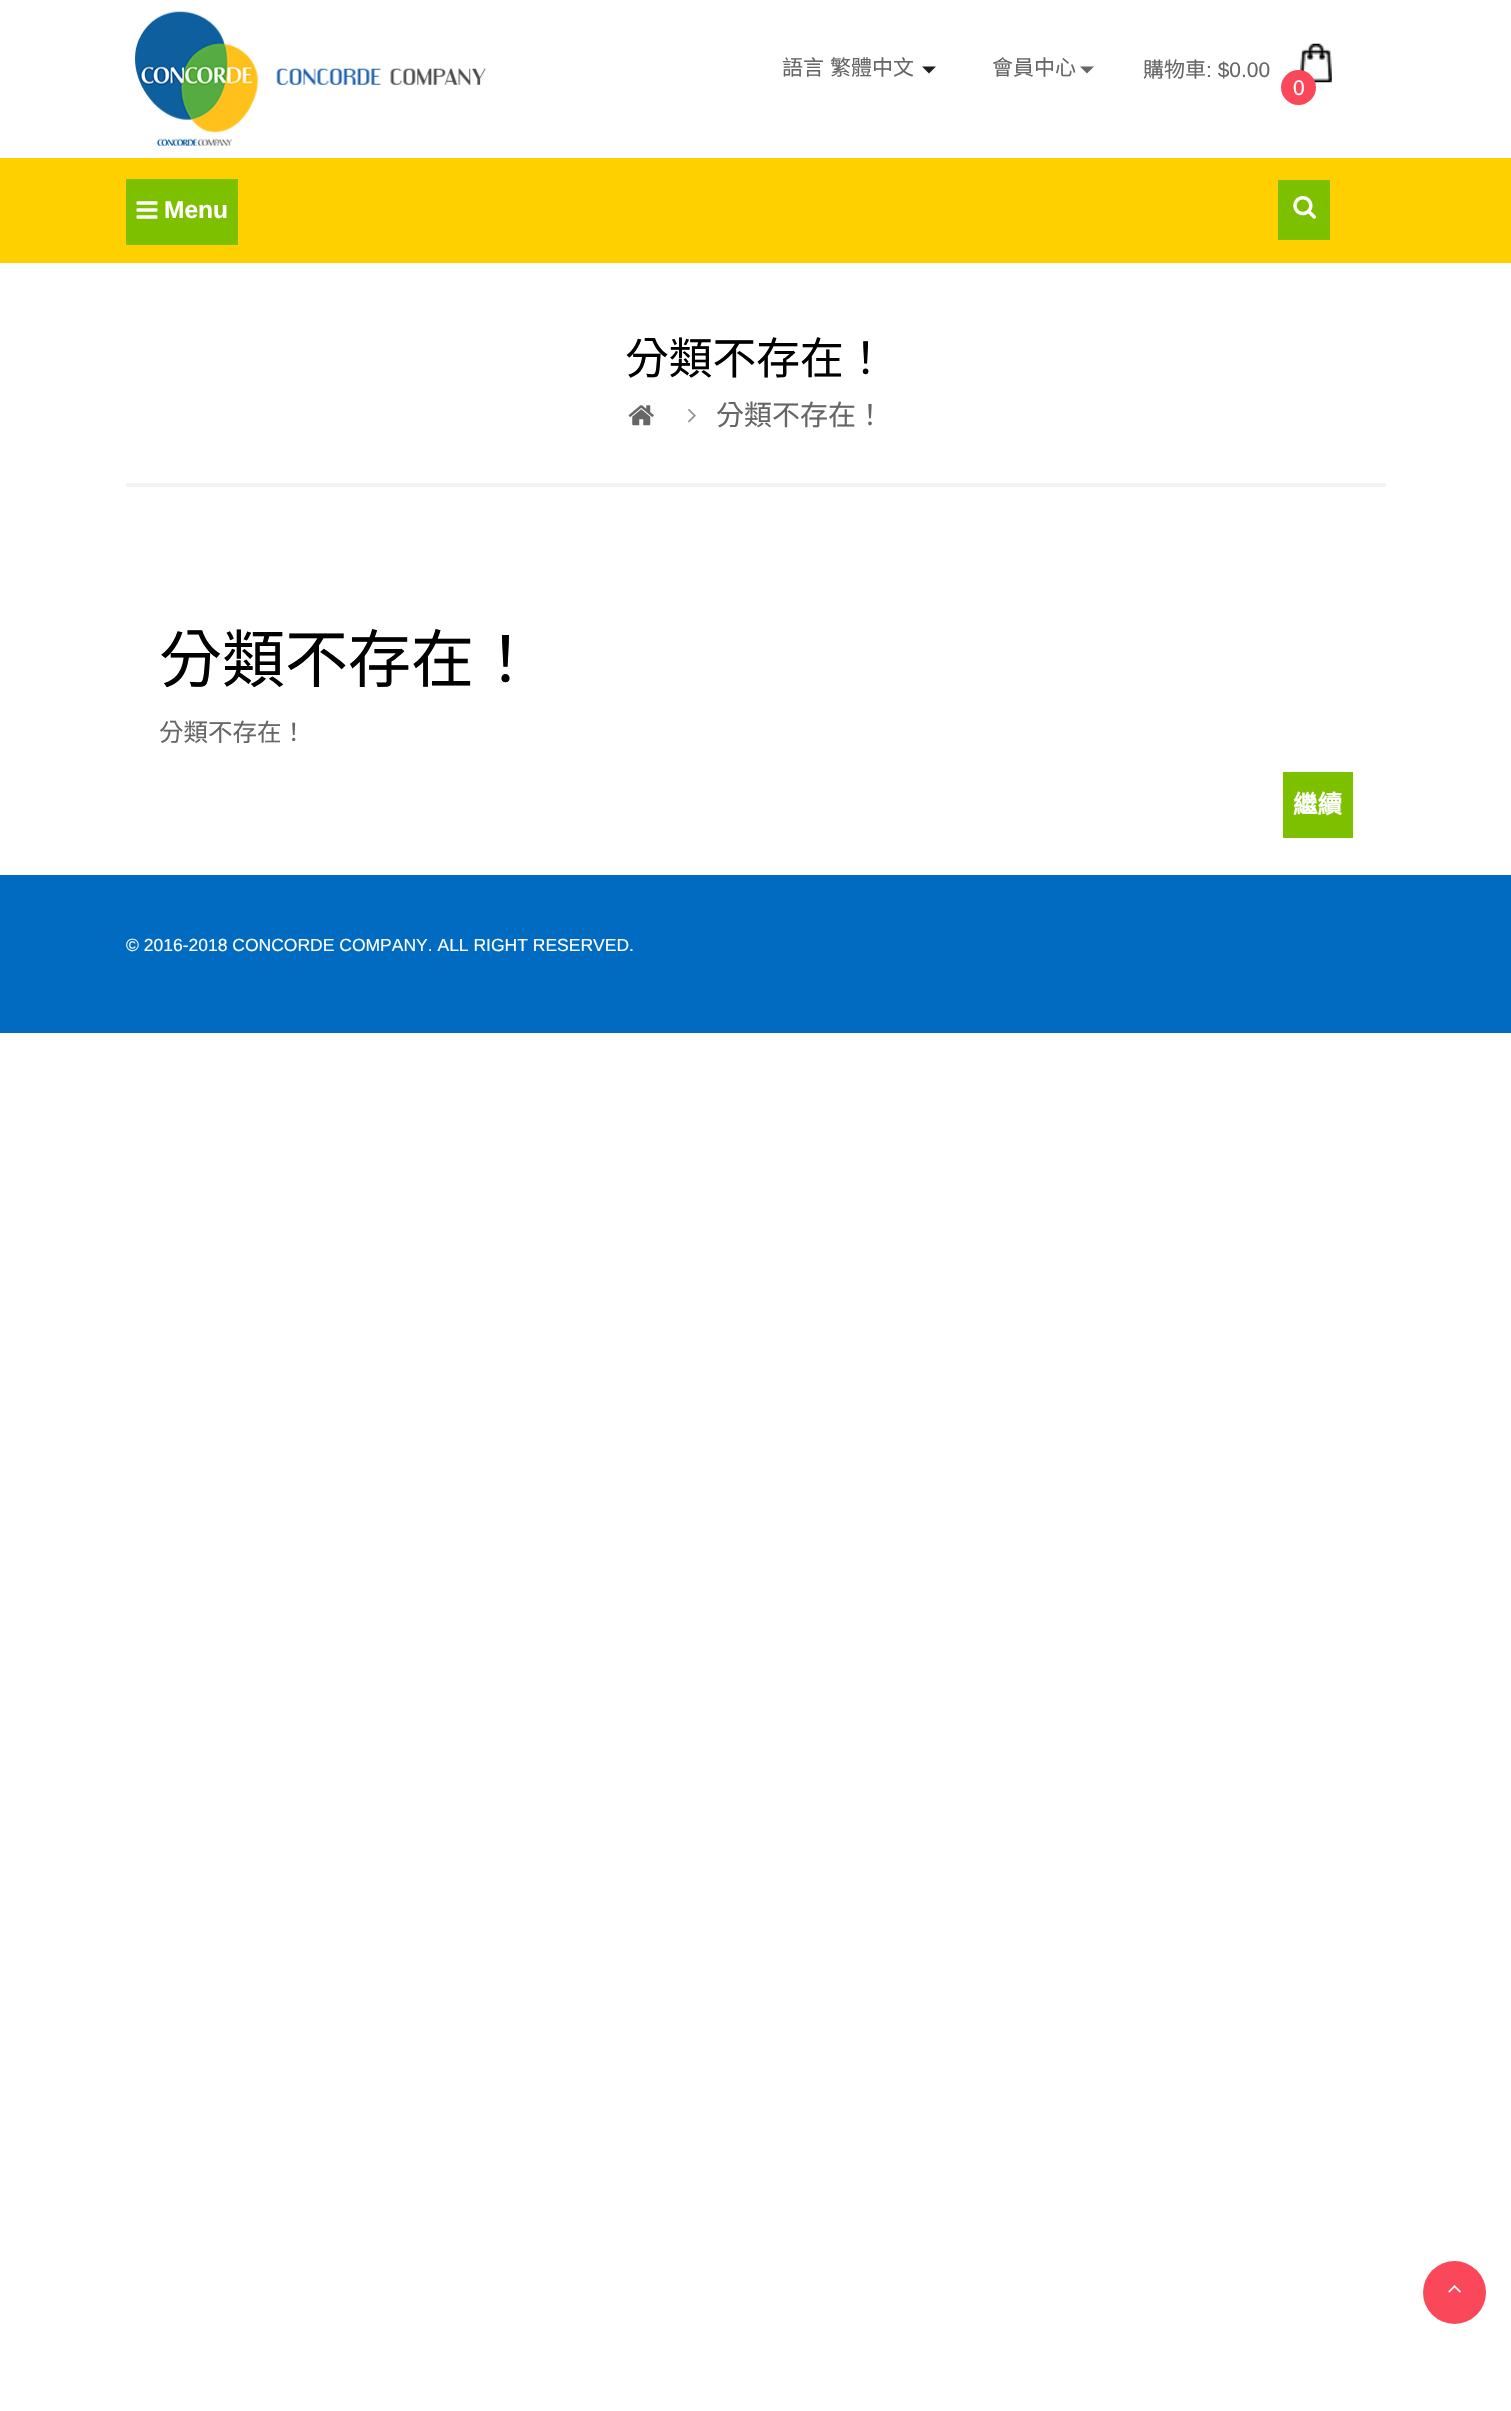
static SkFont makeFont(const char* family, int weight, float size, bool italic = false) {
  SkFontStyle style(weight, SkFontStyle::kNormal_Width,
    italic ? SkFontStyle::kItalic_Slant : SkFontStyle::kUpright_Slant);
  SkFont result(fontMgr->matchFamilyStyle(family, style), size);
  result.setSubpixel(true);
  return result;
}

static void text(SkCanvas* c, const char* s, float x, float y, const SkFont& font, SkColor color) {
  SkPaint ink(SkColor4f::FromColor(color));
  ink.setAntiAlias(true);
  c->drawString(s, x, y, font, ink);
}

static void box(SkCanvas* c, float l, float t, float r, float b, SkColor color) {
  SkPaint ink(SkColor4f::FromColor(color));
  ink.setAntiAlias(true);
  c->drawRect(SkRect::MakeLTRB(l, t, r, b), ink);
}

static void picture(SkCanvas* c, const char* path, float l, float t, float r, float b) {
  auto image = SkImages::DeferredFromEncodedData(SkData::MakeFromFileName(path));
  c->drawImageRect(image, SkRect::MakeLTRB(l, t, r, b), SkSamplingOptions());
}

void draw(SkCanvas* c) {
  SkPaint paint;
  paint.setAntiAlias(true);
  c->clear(0xffffffff);
  picture(c, "img_01.png", 135, 11, 487, 146);
  SkFont face1 = makeFont("Noto Sans CJK TC", 400, 21);
  text(c, "語言", 782, 75, face1, 0xff666666);
  text(c, "繁體中文", 830, 75, face1, 0xff666666);
  paint.setColor(0xff1e1e1e);
  c->drawPath(SkPathBuilder().moveTo(922, 66.5f).lineTo(936, 66.5f).lineTo(929, 73.5f).close().detach(), paint);
  text(c, "會員中心", 992, 75, face1, 0xff666666);
  paint.setColor(0xff666666);
  c->drawPath(SkPathBuilder().moveTo(1080, 66.5f).lineTo(1094, 66.5f).lineTo(1087, 73.5f).close().detach(), paint);
  text(c, "購物車", 1143, 77, face1, 0xff666666);
  SkFont face2 = makeFont("Liberation Sans", 400, 21);
  text(c, ": $0.00", 1206, 77, face2, 0xff666666);
  picture(c, "img_02.png", 1300, 43, 1332, 83);
  paint.setColor(0xfffa485a);
  c->drawCircle(1298.5f, 87.5f, 17.5f, paint);
  text(c, "0", 1293, 95, face2, 0xffffffff);
  box(c, 0, 158, 1511, 263, 0xffffd000);
  box(c, 126, 179, 238, 245, 0xff7dc000);
  picture(c, "img_03.png", 136, 201, 158, 219);
  SkFont face3 = makeFont("Liberation Sans", 700, 24.5f);
  text(c, "Menu", 164, 218, face3, 0xffffffff);
  box(c, 1278, 180, 1330, 240, 0xff7dc000);
  picture(c, "img_04.png", 1293, 196, 1316, 219);
  box(c, 126, 483, 1386, 487, 0xfff3f3f3);
  SkFont face4 = makeFont("Noto Sans CJK TC", 400, 43.75f);
  text(c, "分類不存在！", 625, 374, face4, 0xff000000);
  picture(c, "img_05.png", 628, 405, 654, 426);
  picture(c, "img_06.png", 688, 408, 696, 423);
  SkFont face5 = makeFont("Noto Sans CJK TC", 400, 28);
  text(c, "分類不存在！", 716, 425, face5, 0xff666666);
  SkFont face6 = makeFont("Noto Sans CJK TC", 400, 63);
  text(c, "分類不存在！", 159, 682, face6, 0xff000000);
  SkFont face7 = makeFont("Noto Sans CJK TC", 400, 24.5f);
  text(c, "分類不存在！", 159, 741, face7, 0xff666666);
  box(c, 1283, 772, 1353, 838, 0xff7dc000);
  SkFont face8 = makeFont("Noto Sans CJK TC", 700, 24.5f);
  text(c, "繼續", 1293, 813, face8, 0xffffffff);
  box(c, 0, 875, 1511, 1033, 0xff006bc0);
  SkFont face9 = makeFont("Liberation Sans", 400, 17.5f);
  text(c, "© 2016-2018 CONCORDE COMPANY. ALL RIGHT RESERVED.", 126, 951, face9, 0xffffffff);
  c->drawCircle(1454.5f, 2292.5f, 31.5f, paint);
  picture(c, "img_07.png", 1448, 2285, 1461, 2293);
}
